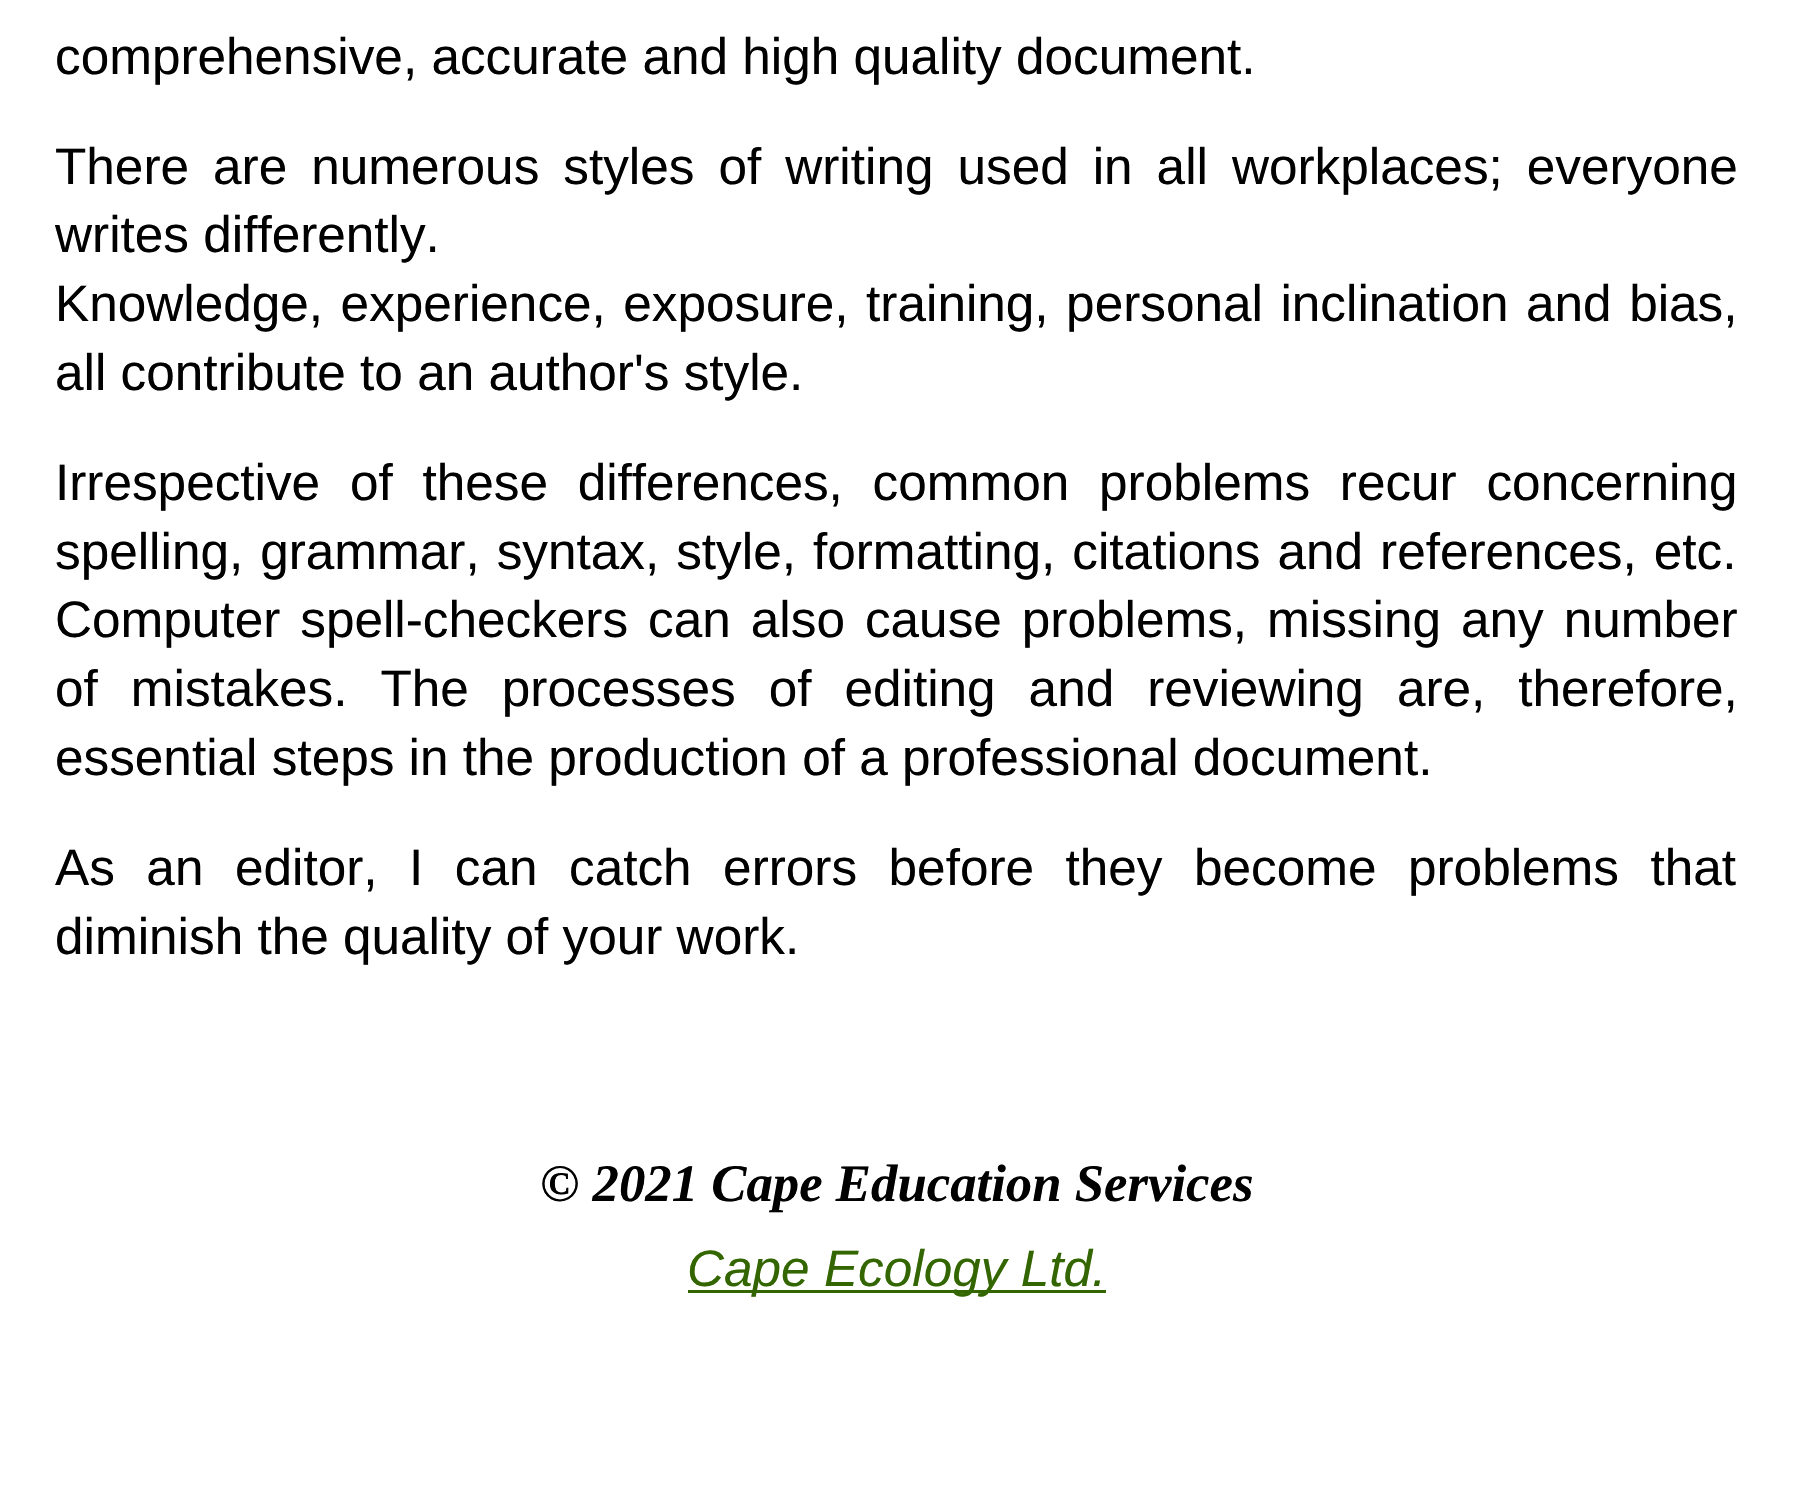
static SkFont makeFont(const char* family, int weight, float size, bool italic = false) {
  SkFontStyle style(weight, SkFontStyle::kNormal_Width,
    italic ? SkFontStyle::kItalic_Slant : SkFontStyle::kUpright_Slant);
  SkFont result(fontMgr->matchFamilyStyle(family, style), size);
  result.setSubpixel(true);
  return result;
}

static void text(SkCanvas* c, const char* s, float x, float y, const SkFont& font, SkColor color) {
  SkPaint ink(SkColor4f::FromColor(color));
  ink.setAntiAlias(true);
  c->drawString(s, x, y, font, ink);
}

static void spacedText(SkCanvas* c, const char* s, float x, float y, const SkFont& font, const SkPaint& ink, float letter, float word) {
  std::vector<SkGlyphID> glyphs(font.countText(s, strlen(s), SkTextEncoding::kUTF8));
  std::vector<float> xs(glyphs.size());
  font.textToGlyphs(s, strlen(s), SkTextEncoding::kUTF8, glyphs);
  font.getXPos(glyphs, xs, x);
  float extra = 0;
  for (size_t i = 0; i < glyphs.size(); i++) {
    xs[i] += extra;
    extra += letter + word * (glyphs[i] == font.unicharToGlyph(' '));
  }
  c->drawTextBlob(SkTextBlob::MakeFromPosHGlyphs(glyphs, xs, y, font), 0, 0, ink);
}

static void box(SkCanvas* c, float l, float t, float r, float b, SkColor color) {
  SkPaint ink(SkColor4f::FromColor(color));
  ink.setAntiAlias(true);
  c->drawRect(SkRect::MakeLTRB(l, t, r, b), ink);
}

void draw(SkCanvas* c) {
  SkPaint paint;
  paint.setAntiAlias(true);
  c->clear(0xffffffff);
  SkFont face1 = makeFont("Liberation Sans", 400, 51.3f);
  text(c, "comprehensive, accurate and high quality document.", 55, 74, face1, 0xff000000);
  paint.setColor(0xff000000);
  spacedText(c, "There are numerous styles of writing used in all workplaces; everyone", 55, 184, face1, paint, 0, 9.75f);
  text(c, "writes differently.", 55, 252, face1, 0xff000000);
  spacedText(c, "Knowledge, experience, exposure, training, personal inclination and bias,", 55, 321, face1, paint, 0, 3.25f);
  text(c, "all contribute to an author's style.", 55, 390, face1, 0xff000000);
  spacedText(c, "Irrespective of these differences, common problems recur concerning", 55, 500, face1, paint, 0, 15.5f);
  spacedText(c, "spelling, grammar, syntax, style, formatting, citations and references, etc.", 55, 569, face1, paint, 0, 2.75f);
  spacedText(c, "Computer spell-checkers can also cause problems, missing any number", 55, 637, face1, paint, 0, 5.75f);
  spacedText(c, "of mistakes. The processes of editing and reviewing are, therefore,", 55, 706, face1, paint, 0, 18.75f);
  text(c, "essential steps in the production of a professional document.", 55, 775, face1, 0xff000000);
  spacedText(c, "As an editor, I can catch errors before they become problems that", 55, 885, face1, paint, 0, 17.25f);
  text(c, "diminish the quality of your work.", 55, 954, face1, 0xff000000);
  SkFont face2 = makeFont("Liberation Serif", 700, 52.75f, true);
  text(c, "© 2021 Cape Education Services", 540, 1201, face2, 0xff000000);
  box(c, 688, 1290, 1106, 1293, 0xff336600);
  SkFont face3 = makeFont("Liberation Sans", 400, 51.3f, true);
  text(c, "Cape Ecology Ltd.", 687, 1286, face3, 0xff336600);
}
